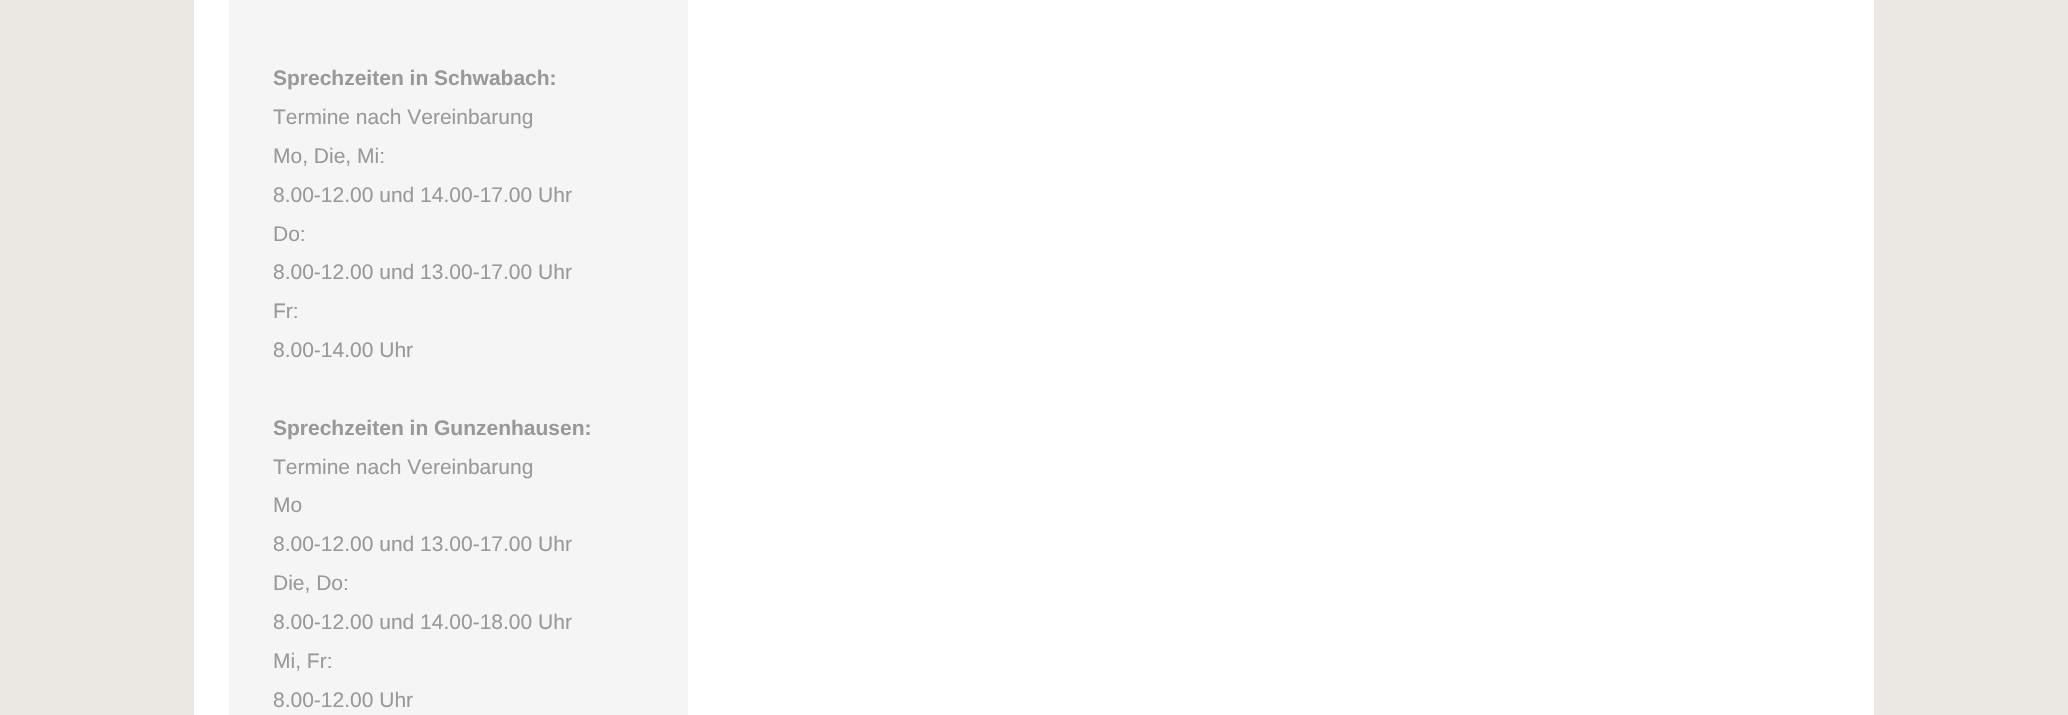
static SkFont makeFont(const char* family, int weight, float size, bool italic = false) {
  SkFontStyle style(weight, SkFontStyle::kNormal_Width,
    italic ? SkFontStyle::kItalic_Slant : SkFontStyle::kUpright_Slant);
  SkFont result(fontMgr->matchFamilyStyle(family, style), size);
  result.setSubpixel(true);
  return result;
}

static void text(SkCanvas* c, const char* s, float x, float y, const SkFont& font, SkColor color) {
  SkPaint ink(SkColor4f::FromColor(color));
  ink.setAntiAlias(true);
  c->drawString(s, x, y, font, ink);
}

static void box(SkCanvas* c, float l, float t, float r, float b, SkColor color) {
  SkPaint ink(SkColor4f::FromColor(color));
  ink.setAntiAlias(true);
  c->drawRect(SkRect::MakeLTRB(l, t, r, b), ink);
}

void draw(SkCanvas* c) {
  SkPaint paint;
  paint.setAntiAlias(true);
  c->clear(0xffebe7e2);
  box(c, 194, 0, 1874, 715, 0xffffffff);
  box(c, 229, 0, 688, 715, 0xfff5f5f5);
  SkFont face1 = makeFont("Liberation Sans", 700, 21);
  text(c, "Sprechzeiten in Schwabach:", 273, 85, face1, 0xff999999);
  SkFont face2 = makeFont("Liberation Sans", 400, 21);
  text(c, "Termine nach Vereinbarung", 273, 124, face2, 0xff999999);
  text(c, "Mo, Die, Mi:", 273, 163, face2, 0xff999999);
  text(c, "8.00-12.00 und 14.00-17.00 Uhr", 273, 202, face2, 0xff999999);
  text(c, "Do:", 273, 241, face2, 0xff999999);
  text(c, "8.00-12.00 und 13.00-17.00 Uhr", 273, 279, face2, 0xff999999);
  text(c, "Fr:", 273, 318, face2, 0xff999999);
  text(c, "8.00-14.00 Uhr", 273, 357, face2, 0xff999999);
  text(c, "Sprechzeiten in Gunzenhausen:", 273, 435, face1, 0xff999999);
  text(c, "Termine nach Vereinbarung", 273, 474, face2, 0xff999999);
  text(c, "Mo", 273, 512, face2, 0xff999999);
  text(c, "8.00-12.00 und 13.00-17.00 Uhr", 273, 551, face2, 0xff999999);
  text(c, "Die, Do:", 273, 590, face2, 0xff999999);
  text(c, "8.00-12.00 und 14.00-18.00 Uhr", 273, 629, face2, 0xff999999);
  text(c, "Mi, Fr:", 273, 668, face2, 0xff999999);
  text(c, "8.00-12.00 Uhr", 273, 707, face2, 0xff999999);
}
